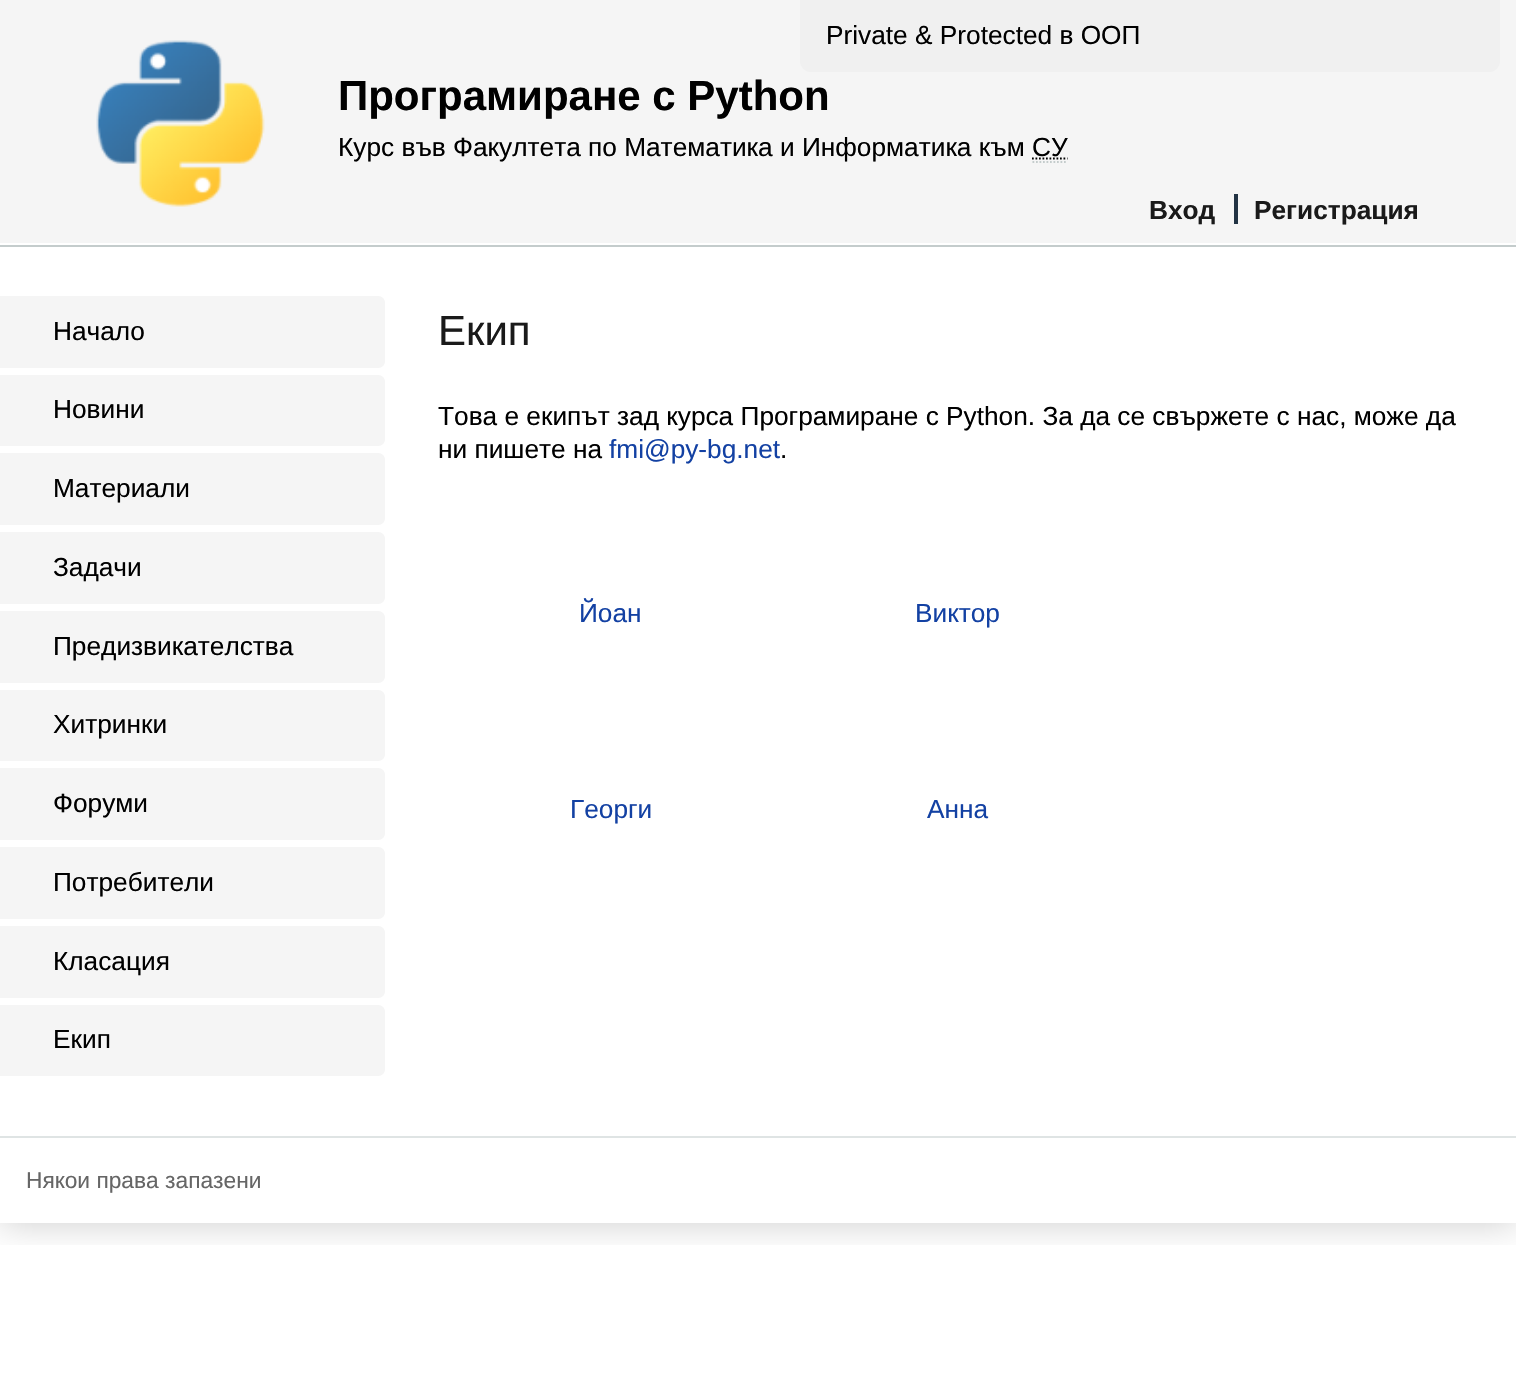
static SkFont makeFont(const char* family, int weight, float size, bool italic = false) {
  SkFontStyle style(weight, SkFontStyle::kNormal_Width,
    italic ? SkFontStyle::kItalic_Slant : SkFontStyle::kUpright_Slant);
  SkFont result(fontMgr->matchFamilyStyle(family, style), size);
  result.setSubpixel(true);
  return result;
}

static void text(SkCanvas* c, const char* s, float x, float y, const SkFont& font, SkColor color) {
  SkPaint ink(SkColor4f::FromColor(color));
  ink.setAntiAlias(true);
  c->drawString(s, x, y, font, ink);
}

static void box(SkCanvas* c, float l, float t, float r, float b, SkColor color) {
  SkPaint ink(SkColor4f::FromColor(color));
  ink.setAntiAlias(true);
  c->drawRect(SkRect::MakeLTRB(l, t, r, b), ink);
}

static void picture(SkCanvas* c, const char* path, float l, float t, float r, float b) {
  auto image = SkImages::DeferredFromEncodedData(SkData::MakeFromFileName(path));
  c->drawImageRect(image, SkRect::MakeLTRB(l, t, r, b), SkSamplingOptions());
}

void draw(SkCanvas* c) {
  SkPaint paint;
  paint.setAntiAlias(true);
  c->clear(0xffffffff);
  c->save();
  c->clipRect(SkRect::MakeLTRB(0, 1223, 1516, 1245));
  paint.setColor(0x33000000);
  paint.setMaskFilter(SkMaskFilter::MakeBlur(kNormal_SkBlurStyle, 17.5f));
  c->drawRect(SkRect::MakeLTRB(0, 0, 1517, 1223), paint);
  paint.setMaskFilter(nullptr);
  c->restore();
  box(c, 0, 245, 1516, 247, 0xffc4cccc);
  box(c, 0, 0, 1516, 243, 0xfff5f5f5);
  paint.setColor(0xfff0f0f0);
  c->drawPath(SkPathBuilder().moveTo(800, 0).lineTo(1500, 0).lineTo(1500, 61).cubicTo(1500, 67, 1495, 72, 1489, 72).lineTo(811, 72).cubicTo(805, 72, 800, 67, 800, 61).close().detach(), paint);
  SkFont face1 = makeFont("Liberation Sans", 400, 26.25f);
  text(c, "Private & Protected в ООП", 826, 44, face1, 0xff000000);
  picture(c, "img_01.png", 96, 40, 265, 207);
  SkFont face2 = makeFont("Liberation Sans", 700, 42);
  text(c, "Програмиране с Python", 338, 110, face2, 0xff000000);
  text(c, "Курс във Факултета по Математика и Информатика към СУ", 338, 156, face1, 0xff000000);
  paint.setStyle(SkPaint::kStroke_Style);
  paint.setStrokeWidth(1.8f);
  paint.setColor(0xff000000);
  paint.setPathEffect(SkDashPathEffect::Make({{1.75f, 1.75f}}, 0));
  c->drawPath(SkPathBuilder().moveTo(1032, 158.5f).lineTo(1067.5f, 158.5f).detach(), paint);
  paint.setPathEffect(nullptr);
  paint.setColor(0xffc4cccc);
  paint.setPathEffect(SkDashPathEffect::Make({{1.75f, 1.75f}}, 0));
  c->drawPath(SkPathBuilder().moveTo(1032.5f, 162).lineTo(1067.5f, 162).detach(), paint);
  paint.setPathEffect(nullptr);
  SkFont face3 = makeFont("Liberation Sans", 700, 26.25f);
  text(c, "Вход", 1149, 219, face3, 0xff1a1a1a);
  text(c, "Регистрация", 1254, 219, face3, 0xff1a1a1a);
  box(c, 1234, 194, 1238, 224, 0xff223344);
  paint.setStyle(SkPaint::kFill_Style);
  paint.setColor(0xfff5f5f5);
  c->drawPath(SkPathBuilder().moveTo(0, 296).lineTo(378, 296).cubicTo(382, 296, 385, 299, 385, 303).lineTo(385, 361).cubicTo(385, 365, 382, 368, 378, 368).lineTo(0, 368).close().detach(), paint);
  text(c, "Начало", 53, 340, face1, 0xff000000);
  c->drawPath(SkPathBuilder().moveTo(0, 375).lineTo(378, 375).cubicTo(382, 375, 385, 378, 385, 382).lineTo(385, 439).cubicTo(385, 443, 382, 446, 378, 446).lineTo(0, 446).close().detach(), paint);
  text(c, "Новини", 53, 418, face1, 0xff000000);
  c->drawPath(SkPathBuilder().moveTo(0, 453).lineTo(378, 453).cubicTo(382, 453, 385, 456, 385, 460).lineTo(385, 518).cubicTo(385, 522, 382, 525, 378, 525).lineTo(0, 525).close().detach(), paint);
  text(c, "Материали", 53, 497, face1, 0xff000000);
  c->drawPath(SkPathBuilder().moveTo(0, 532).lineTo(378, 532).cubicTo(382, 532, 385, 535, 385, 539).lineTo(385, 597).cubicTo(385, 601, 382, 604, 378, 604).lineTo(0, 604).close().detach(), paint);
  text(c, "Задачи", 53, 576, face1, 0xff000000);
  c->drawPath(SkPathBuilder().moveTo(0, 611).lineTo(378, 611).cubicTo(382, 611, 385, 614, 385, 618).lineTo(385, 676).cubicTo(385, 680, 382, 683, 378, 683).lineTo(0, 683).close().detach(), paint);
  text(c, "Предизвикателства", 53, 655, face1, 0xff000000);
  c->drawPath(SkPathBuilder().moveTo(0, 690).lineTo(378, 690).cubicTo(382, 690, 385, 693, 385, 697).lineTo(385, 754).cubicTo(385, 758, 382, 761, 378, 761).lineTo(0, 761).close().detach(), paint);
  text(c, "Хитринки", 53, 733, face1, 0xff000000);
  c->drawPath(SkPathBuilder().moveTo(0, 768).lineTo(378, 768).cubicTo(382, 768, 385, 771, 385, 775).lineTo(385, 833).cubicTo(385, 837, 382, 840, 378, 840).lineTo(0, 840).close().detach(), paint);
  text(c, "Форуми", 53, 812, face1, 0xff000000);
  c->drawPath(SkPathBuilder().moveTo(0, 847).lineTo(378, 847).cubicTo(382, 847, 385, 850, 385, 854).lineTo(385, 912).cubicTo(385, 916, 382, 919, 378, 919).lineTo(0, 919).close().detach(), paint);
  text(c, "Потребители", 53, 891, face1, 0xff000000);
  c->drawPath(SkPathBuilder().moveTo(0, 926).lineTo(378, 926).cubicTo(382, 926, 385, 929, 385, 933).lineTo(385, 991).cubicTo(385, 995, 382, 998, 378, 998).lineTo(0, 998).close().detach(), paint);
  text(c, "Класация", 53, 970, face1, 0xff000000);
  c->drawPath(SkPathBuilder().moveTo(0, 1005).lineTo(378, 1005).cubicTo(382, 1005, 385, 1008, 385, 1012).lineTo(385, 1069).cubicTo(385, 1073, 382, 1076, 378, 1076).lineTo(0, 1076).close().detach(), paint);
  text(c, "Екип", 53, 1048, face1, 0xff000000);
  SkFont face4 = makeFont("Liberation Sans", 400, 42);
  text(c, "Екип", 438, 345, face4, 0xff1a1a1a);
  text(c, "Това е екипът зад курса Програмиране с Python. За да се свържете с нас, може да", 438, 425, face1, 0xff000000);
  text(c, "ни пишете на", 438, 458, face1, 0xff000000);
  text(c, "fmi@py-bg.net", 609, 458, face1, 0xff1341a3);
  text(c, ".", 780, 458, face1, 0xff000000);
  text(c, "Йоан", 579, 622, face1, 0xff1341a3);
  text(c, "Виктор", 915, 622, face1, 0xff1341a3);
  text(c, "Георги", 570, 818, face1, 0xff1341a3);
  text(c, "Анна", 927, 818, face1, 0xff1341a3);
  box(c, 0, 1136, 1516, 1138, 0xffdfe4e4);
  SkFont face5 = makeFont("Liberation Sans", 400, 22.75f);
  text(c, "Някои права запазени", 26, 1188, face5, 0xff666666);
}
